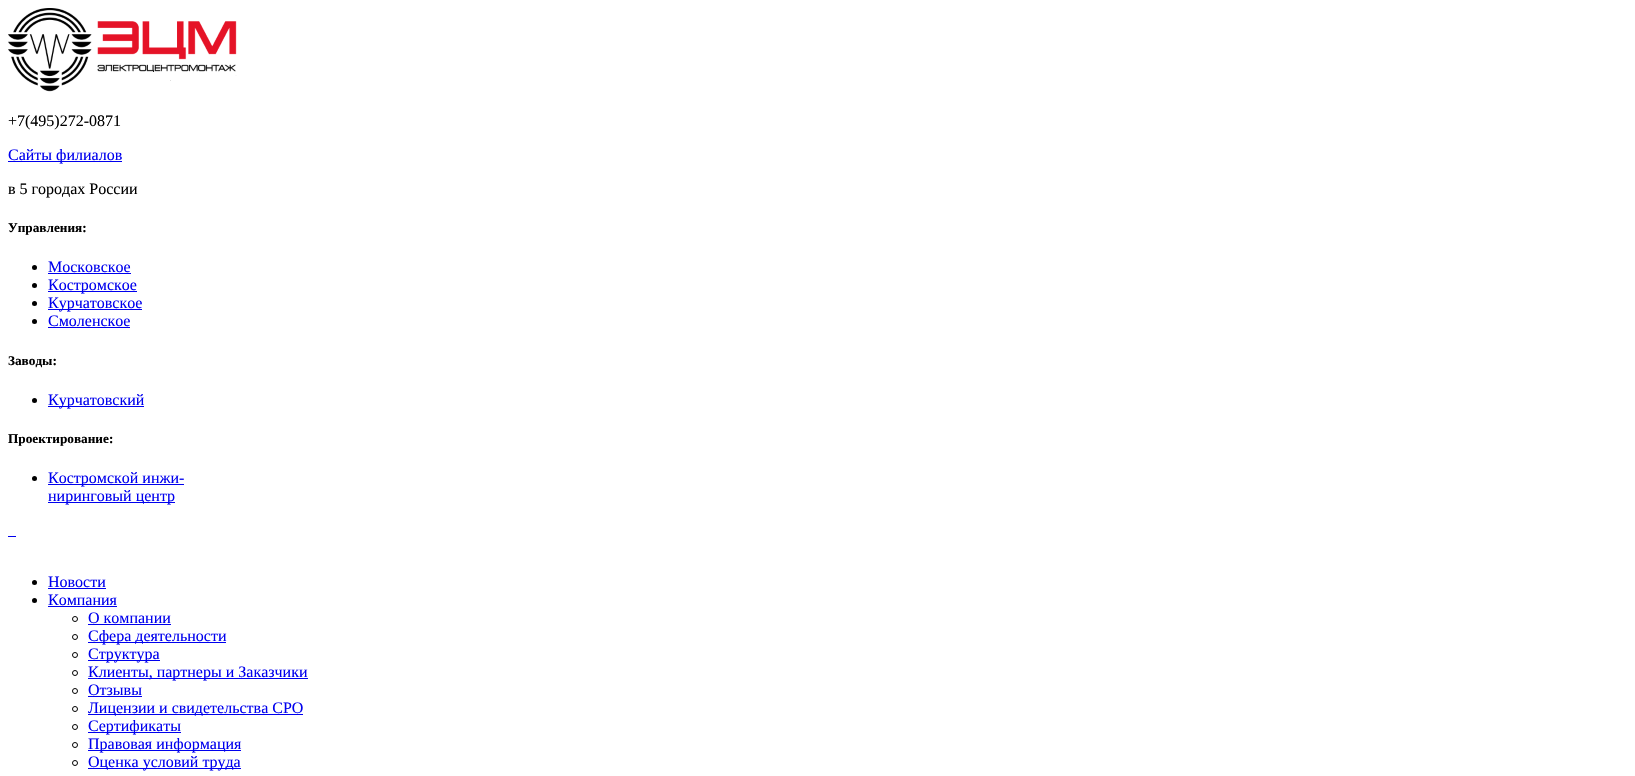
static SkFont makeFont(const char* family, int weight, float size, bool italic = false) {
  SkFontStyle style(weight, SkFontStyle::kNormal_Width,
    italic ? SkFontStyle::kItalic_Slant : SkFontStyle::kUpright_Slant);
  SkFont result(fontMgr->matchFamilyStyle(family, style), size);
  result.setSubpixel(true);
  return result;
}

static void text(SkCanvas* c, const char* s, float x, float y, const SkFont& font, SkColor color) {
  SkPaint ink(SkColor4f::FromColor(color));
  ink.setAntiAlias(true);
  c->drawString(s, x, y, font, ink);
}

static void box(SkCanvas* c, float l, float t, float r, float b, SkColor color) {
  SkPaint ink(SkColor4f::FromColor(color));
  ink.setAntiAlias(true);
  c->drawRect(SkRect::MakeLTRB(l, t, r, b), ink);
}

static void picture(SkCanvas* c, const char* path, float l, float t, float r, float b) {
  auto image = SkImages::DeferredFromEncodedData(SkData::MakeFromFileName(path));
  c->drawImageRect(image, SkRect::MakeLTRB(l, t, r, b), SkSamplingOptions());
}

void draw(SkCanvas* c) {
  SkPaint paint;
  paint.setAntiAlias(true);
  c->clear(0xffffffff);
  picture(c, "img_01.png", 8, 8, 237, 92);
  SkFont face1 = makeFont("Liberation Serif", 400, 16);
  text(c, "+7(495)272-0871", 8, 126, face1, 0xff000000);
  box(c, 8, 161, 122, 162, 0xff0000ee);
  text(c, "Сайты филиалов", 8, 160, face1, 0xff0000ee);
  text(c, "в 5 городах России", 8, 194, face1, 0xff000000);
  SkFont face2 = makeFont("Liberation Serif", 700, 13.25f);
  text(c, "Управления:", 8, 232, face2, 0xff000000);
  paint.setColor(0xff000000);
  c->drawCircle(34.5f, 267.5f, 2.5f, paint);
  text(c, "Московское", 48, 272, face1, 0xff0000ee);
  box(c, 48, 273, 131, 274, 0xff0000ee);
  c->drawCircle(34.5f, 285.5f, 2.5f, paint);
  box(c, 48, 291, 137, 292, 0xff0000ee);
  text(c, "Костромское", 48, 290, face1, 0xff0000ee);
  c->drawCircle(34.5f, 303.5f, 2.5f, paint);
  box(c, 48, 309, 142, 310, 0xff0000ee);
  text(c, "Курчатовское", 48, 308, face1, 0xff0000ee);
  c->drawCircle(34.5f, 321.5f, 2.5f, paint);
  text(c, "Смоленское", 48, 326, face1, 0xff0000ee);
  box(c, 48, 327, 130, 328, 0xff0000ee);
  text(c, "Заводы:", 8, 365, face2, 0xff000000);
  c->drawCircle(34.5f, 400.5f, 2.5f, paint);
  box(c, 48, 406, 144, 407, 0xff0000ee);
  text(c, "Курчатовский", 48, 405, face1, 0xff0000ee);
  text(c, "Проектирование:", 8, 443, face2, 0xff000000);
  c->drawCircle(34.5f, 478.5f, 2.5f, paint);
  box(c, 48, 484, 184, 485, 0xff0000ee);
  text(c, "Костромской инжи-", 48, 483, face1, 0xff0000ee);
  box(c, 48, 502, 175, 503, 0xff0000ee);
  text(c, "ниринговый центр", 48, 501, face1, 0xff0000ee);
  box(c, 8, 536, 16, 537, 0xff0000ee);
  c->drawCircle(34.5f, 582.5f, 2.5f, paint);
  text(c, "Новости", 48, 587, face1, 0xff0000ee);
  box(c, 48, 588, 106, 589, 0xff0000ee);
  c->drawCircle(34.5f, 600.5f, 2.5f, paint);
  text(c, "Компания", 48, 605, face1, 0xff0000ee);
  box(c, 48, 606, 117, 607, 0xff0000ee);
  paint.setStyle(SkPaint::kStroke_Style);
  paint.setStrokeWidth(1);
  c->drawCircle(75, 619, 2.5f, paint);
  text(c, "О компании", 88, 623, face1, 0xff0000ee);
  box(c, 88, 624, 171, 625, 0xff0000ee);
  c->drawCircle(75, 637, 2.5f, paint);
  box(c, 88, 642, 226, 643, 0xff0000ee);
  text(c, "Сфера деятельности", 88, 641, face1, 0xff0000ee);
  c->drawCircle(75, 655, 2.5f, paint);
  box(c, 88, 660, 160, 661, 0xff0000ee);
  text(c, "Структура", 88, 659, face1, 0xff0000ee);
  c->drawCircle(75, 673, 2.5f, paint);
  box(c, 88, 678, 308, 679, 0xff0000ee);
  text(c, "Клиенты, партнеры и Заказчики", 88, 677, face1, 0xff0000ee);
  c->drawCircle(75, 691, 2.5f, paint);
  text(c, "Отзывы", 88, 695, face1, 0xff0000ee);
  box(c, 88, 696, 142, 697, 0xff0000ee);
  c->drawCircle(75, 709, 2.5f, paint);
  box(c, 88, 714, 303, 715, 0xff0000ee);
  text(c, "Лицензии и свидетельства СРО", 88, 713, face1, 0xff0000ee);
  c->drawCircle(75, 727, 2.5f, paint);
  box(c, 88, 732, 181, 733, 0xff0000ee);
  text(c, "Сертификаты", 88, 731, face1, 0xff0000ee);
  c->drawCircle(75, 745, 2.5f, paint);
  box(c, 88, 750, 241, 751, 0xff0000ee);
  text(c, "Правовая информация", 88, 749, face1, 0xff0000ee);
  c->drawCircle(75, 763, 2.5f, paint);
  box(c, 88, 768, 241, 769, 0xff0000ee);
  text(c, "Оценка условий труда", 88, 767, face1, 0xff0000ee);
}
